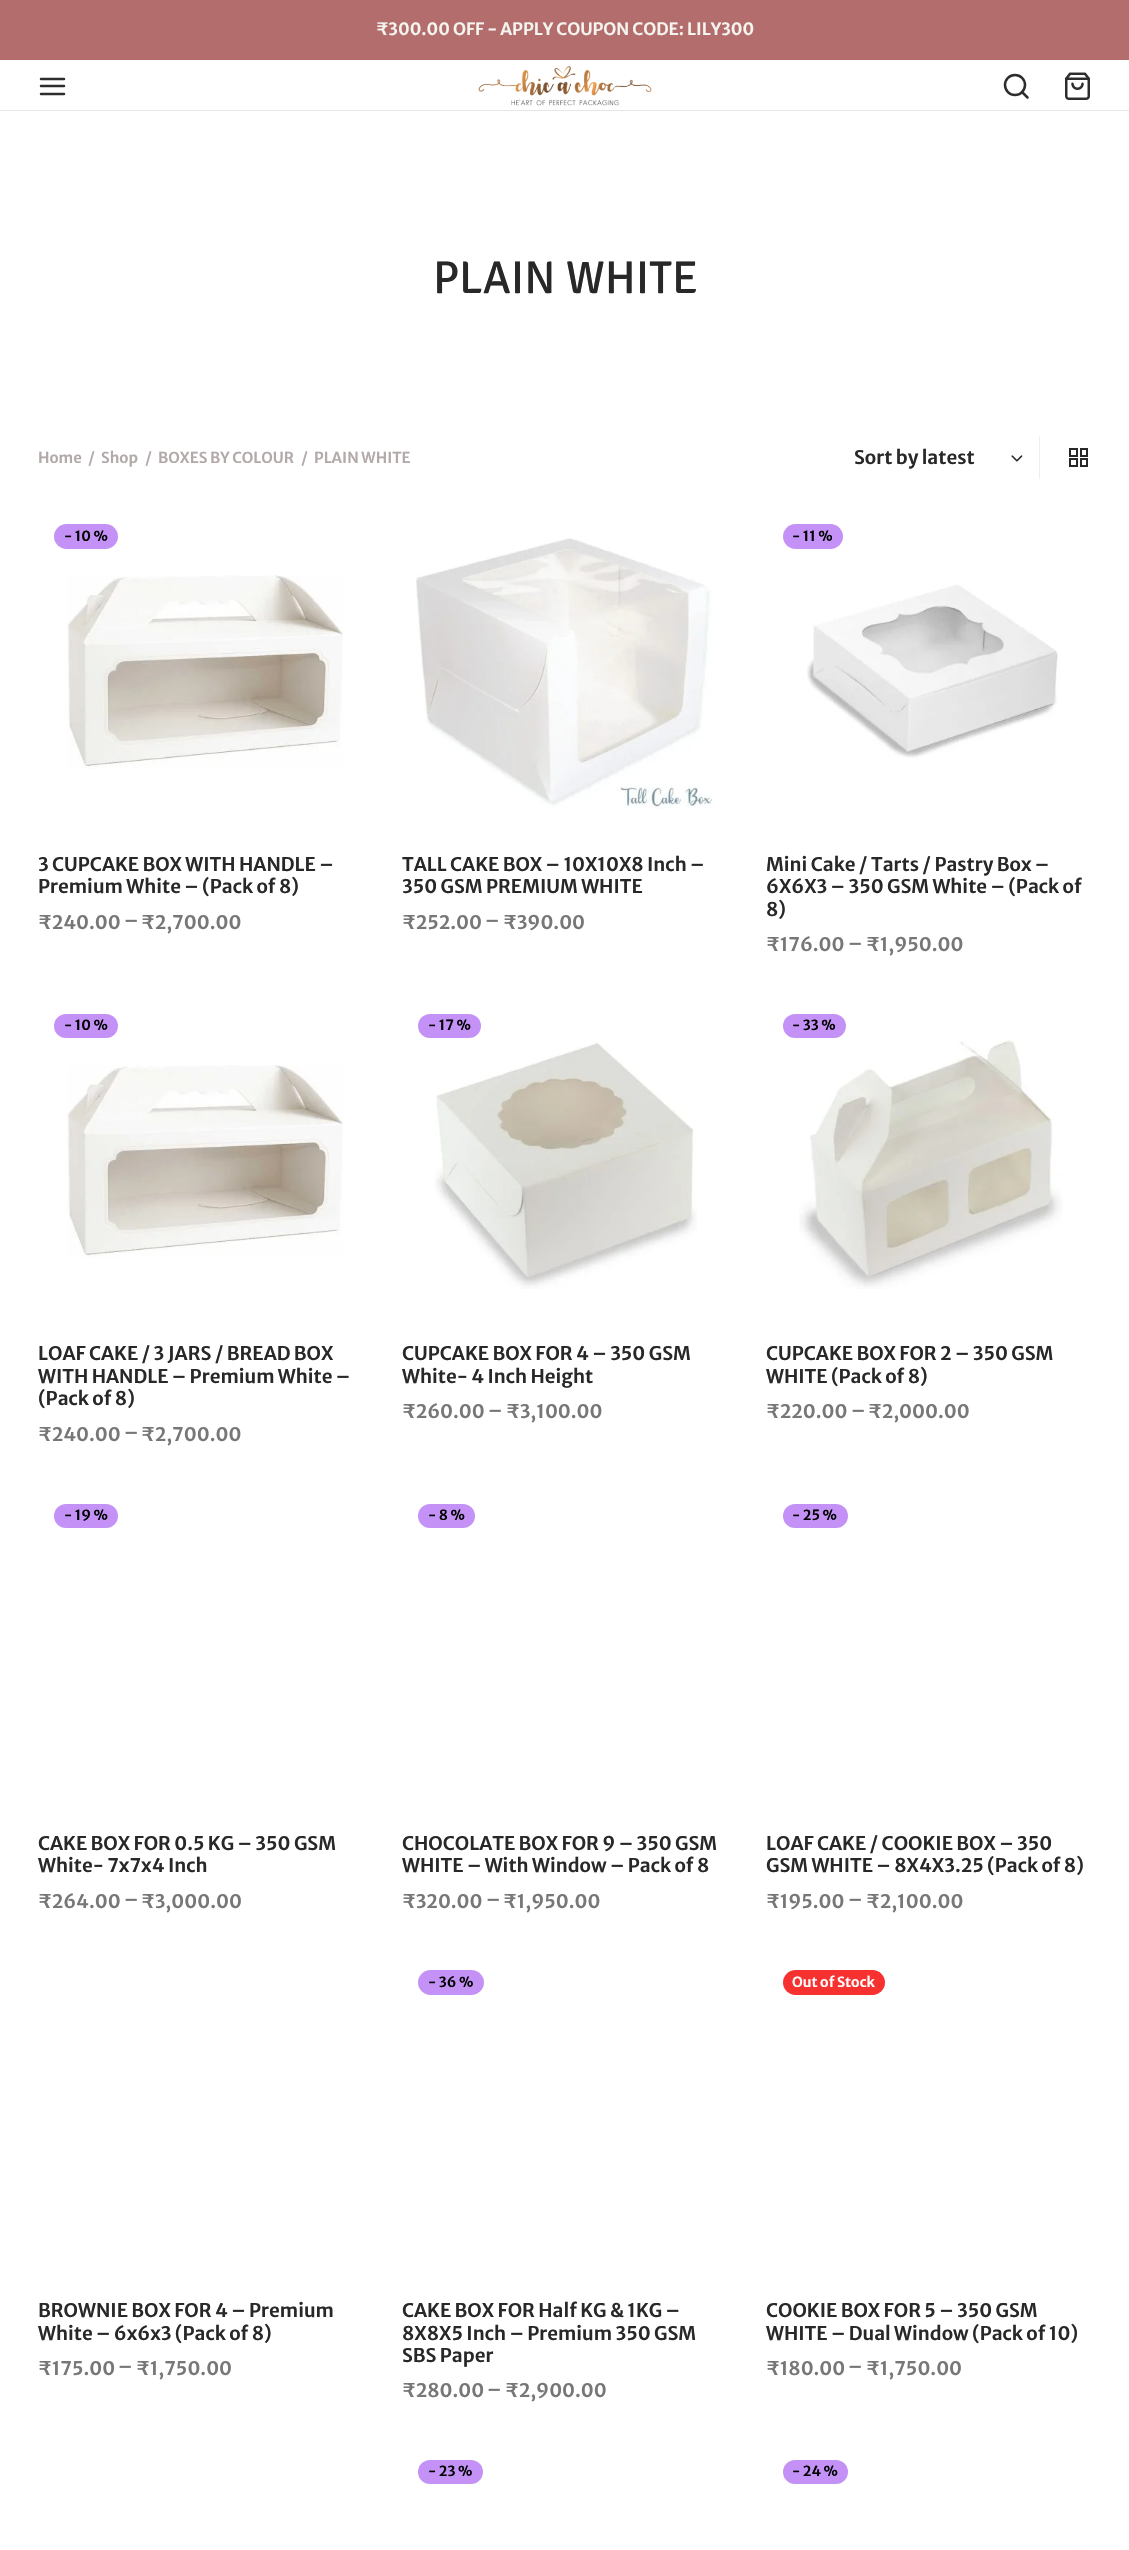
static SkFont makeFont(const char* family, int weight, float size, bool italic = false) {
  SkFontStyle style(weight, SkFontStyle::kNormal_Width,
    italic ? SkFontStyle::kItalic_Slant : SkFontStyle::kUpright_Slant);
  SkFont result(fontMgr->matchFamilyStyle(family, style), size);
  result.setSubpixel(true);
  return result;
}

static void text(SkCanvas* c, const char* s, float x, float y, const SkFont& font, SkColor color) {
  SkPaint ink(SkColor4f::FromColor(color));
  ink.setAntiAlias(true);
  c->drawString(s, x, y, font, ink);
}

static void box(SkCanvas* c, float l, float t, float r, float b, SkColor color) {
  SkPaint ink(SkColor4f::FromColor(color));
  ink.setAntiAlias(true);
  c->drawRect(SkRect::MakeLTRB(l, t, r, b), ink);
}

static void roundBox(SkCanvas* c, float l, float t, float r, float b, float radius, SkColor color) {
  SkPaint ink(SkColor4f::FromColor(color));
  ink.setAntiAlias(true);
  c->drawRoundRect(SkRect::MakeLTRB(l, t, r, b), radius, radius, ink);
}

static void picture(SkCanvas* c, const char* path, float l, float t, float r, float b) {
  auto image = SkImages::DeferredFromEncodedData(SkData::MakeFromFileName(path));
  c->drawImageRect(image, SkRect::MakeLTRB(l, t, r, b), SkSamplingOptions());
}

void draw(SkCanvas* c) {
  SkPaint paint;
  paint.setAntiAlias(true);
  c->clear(0xffffffff);
  box(c, 0, 0, 1129, 60, 0xffb36d6d);
  SkFont face1 = makeFont("Merriweather Sans", 600, 16.9f);
  text(c, "₹300.00 OFF - APPLY COUPON CODE: LILY300", 376, 35, face1, 0xfff5f5ef);
  paint.setStyle(SkPaint::kStroke_Style);
  paint.setStrokeWidth(2.5f);
  paint.setStrokeCap(SkPaint::kRound_Cap);
  paint.setStrokeJoin(SkPaint::kRound_Join);
  paint.setColor(0xff2d2d2d);
  c->drawPath(SkPathBuilder().moveTo(41, 86).lineTo(64, 86).moveTo(41, 79).lineTo(64, 79).moveTo(41, 94).lineTo(64, 94).detach(), paint);
  picture(c, "img_01.png", 478, 66, 652, 106);
  paint.setStrokeCap(SkPaint::kButt_Cap);
  paint.setStrokeJoin(SkPaint::kMiter_Join);
  c->drawCircle(1015, 85, 10, paint);
  paint.setStrokeCap(SkPaint::kRound_Cap);
  paint.setStrokeJoin(SkPaint::kRound_Join);
  c->drawPath(SkPathBuilder().moveTo(1027.5f, 97.5f).lineTo(1022, 92).detach(), paint);
  picture(c, "img_02.png", 1065, 72, 1090, 100);
  box(c, 0, 110, 1129, 111, 0xffe6e6e6);
  SkFont face2 = makeFont("Signika", 300, 46);
  text(c, "PLAIN WHITE", 433, 293, face2, 0xff282828);
  SkFont face3 = makeFont("Merriweather Sans", 600, 15);
  text(c, "Home", 38, 463, face3, 0xffb3a9a9);
  text(c, "/", 88, 463, face3, 0xffb3a9a9);
  text(c, "Shop", 101, 463, face3, 0xffb3a9a9);
  text(c, "/", 145, 463, face3, 0xffb3a9a9);
  text(c, "BOXES BY COLOUR", 158, 463, face3, 0xffb3a9a9);
  text(c, "/", 301, 463, face3, 0xffb3a9a9);
  text(c, "PLAIN WHITE", 314, 463, face3, 0xffb3a9a9);
  SkFont face4 = makeFont("Merriweather Sans", 600, 18.75f);
  text(c, "Sort by latest", 854, 464, face4, 0xff282828);
  picture(c, "img_03.png", 1011, 455, 1023, 462);
  box(c, 1039, 436, 1040, 479, 0xffeeeeee);
  paint.setStrokeWidth(2);
  paint.setStrokeCap(SkPaint::kButt_Cap);
  paint.setStrokeJoin(SkPaint::kMiter_Join);
  paint.setColor(0xff282828);
  c->drawRect(SkRect::MakeLTRB(1070, 449, 1077, 456), paint);
  c->drawRect(SkRect::MakeLTRB(1081, 449, 1087, 456), paint);
  c->drawRect(SkRect::MakeLTRB(1070, 459, 1077, 466), paint);
  c->drawRect(SkRect::MakeLTRB(1081, 459, 1087, 466), paint);
  roundBox(c, 54, 524, 118, 549, 12.5f, 0xffc492f6);
  SkFont face5 = makeFont("Merriweather Sans", 600, 14);
  text(c, "- 10 %", 64, 541, face5, 0xff000000);
  picture(c, "img_04.png", 67, 575, 343, 769);
  text(c, "3 CUPCAKE BOX WITH HANDLE –", 38, 871, face4, 0xff282828);
  text(c, "Premium White – (Pack of 8)", 38, 893, face4, 0xff282828);
  text(c, "₹240.00", 38, 929, face4, 0xff777777);
  text(c, "–", 124, 927, face4, 0xff777777);
  text(c, "₹2,700.00", 141, 929, face4, 0xff777777);
  picture(c, "img_05.png", 416, 538, 713, 809);
  text(c, "TALL CAKE BOX – 10X10X8 Inch –", 402, 871, face4, 0xff282828);
  text(c, "350 GSM PREMIUM WHITE", 402, 893, face4, 0xff282828);
  text(c, "₹252.00", 402, 929, face4, 0xff777777);
  text(c, "–", 485, 927, face4, 0xff777777);
  text(c, "₹390.00", 503, 929, face4, 0xff777777);
  roundBox(c, 783, 524, 843, 549, 12.5f, 0xffc492f6);
  text(c, "- 11 %", 792, 541, face5, 0xff000000);
  picture(c, "img_06.png", 807, 584, 1058, 758);
  text(c, "Mini Cake / Tarts / Pastry Box –", 766, 871, face4, 0xff282828);
  text(c, "6X6X3 – 350 GSM White – (Pack of", 766, 893, face4, 0xff282828);
  text(c, "8)", 766, 916, face4, 0xff282828);
  text(c, "₹176.00", 766, 951, face4, 0xff777777);
  text(c, "–", 848, 950, face4, 0xff777777);
  text(c, "₹1,950.00", 866, 951, face4, 0xff777777);
  roundBox(c, 54, 1014, 118, 1038, 12, 0xffc492f6);
  text(c, "- 10 %", 64, 1030, face5, 0xff000000);
  picture(c, "img_07.png", 67, 1065, 343, 1258);
  text(c, "LOAF CAKE / 3 JARS / BREAD BOX", 38, 1360, face4, 0xff282828);
  text(c, "WITH HANDLE – Premium White –", 38, 1383, face4, 0xff282828);
  text(c, "(Pack of 8)", 38, 1405, face4, 0xff282828);
  text(c, "₹240.00", 38, 1441, face4, 0xff777777);
  text(c, "–", 124, 1439, face4, 0xff777777);
  text(c, "₹2,700.00", 141, 1441, face4, 0xff777777);
  roundBox(c, 418, 1014, 481, 1038, 12, 0xffc492f6);
  text(c, "- 17 %", 428, 1030, face5, 0xff000000);
  picture(c, "img_08.png", 435, 1041, 697, 1289);
  text(c, "CUPCAKE BOX FOR 4 – 350 GSM", 402, 1360, face4, 0xff282828);
  text(c, "White- 4 Inch Height", 402, 1383, face4, 0xff282828);
  text(c, "₹260.00", 402, 1418, face4, 0xff777777);
  text(c, "–", 488, 1417, face4, 0xff777777);
  text(c, "₹3,100.00", 506, 1418, face4, 0xff777777);
  roundBox(c, 783, 1014, 846, 1038, 12, 0xffc492f6);
  text(c, "- 33 %", 792, 1030, face5, 0xff000000);
  picture(c, "img_09.png", 799, 1040, 1063, 1289);
  text(c, "CUPCAKE BOX FOR 2 – 350 GSM", 766, 1360, face4, 0xff282828);
  text(c, "WHITE (Pack of 8)", 766, 1383, face4, 0xff282828);
  text(c, "₹220.00", 766, 1418, face4, 0xff777777);
  text(c, "–", 851, 1417, face4, 0xff777777);
  text(c, "₹2,000.00", 868, 1418, face4, 0xff777777);
  roundBox(c, 54, 1504, 118, 1528, 12, 0xffc492f6);
  text(c, "- 19 %", 64, 1520, face5, 0xff000000);
  text(c, "CAKE BOX FOR 0.5 KG – 350 GSM", 38, 1850, face4, 0xff282828);
  text(c, "White- 7x7x4 Inch", 38, 1872, face4, 0xff282828);
  text(c, "₹264.00", 38, 1908, face4, 0xff777777);
  text(c, "–", 124, 1906, face4, 0xff777777);
  text(c, "₹3,000.00", 141, 1908, face4, 0xff777777);
  roundBox(c, 418, 1504, 475, 1528, 12, 0xffc492f6);
  text(c, "- 8 %", 428, 1520, face5, 0xff000000);
  text(c, "CHOCOLATE BOX FOR 9 – 350 GSM", 402, 1850, face4, 0xff282828);
  text(c, "WHITE – With Window – Pack of 8", 402, 1872, face4, 0xff282828);
  text(c, "₹320.00", 402, 1908, face4, 0xff777777);
  text(c, "–", 486, 1906, face4, 0xff777777);
  text(c, "₹1,950.00", 503, 1908, face4, 0xff777777);
  roundBox(c, 783, 1504, 848, 1528, 12, 0xffc492f6);
  text(c, "- 25 %", 792, 1520, face5, 0xff000000);
  text(c, "LOAF CAKE / COOKIE BOX – 350", 766, 1850, face4, 0xff282828);
  text(c, "GSM WHITE – 8X4X3.25 (Pack of 8)", 766, 1872, face4, 0xff282828);
  text(c, "₹195.00", 766, 1908, face4, 0xff777777);
  text(c, "–", 848, 1906, face4, 0xff777777);
  text(c, "₹2,100.00", 866, 1908, face4, 0xff777777);
  text(c, "BROWNIE BOX FOR 4 – Premium", 38, 2317, face4, 0xff282828);
  text(c, "White – 6x6x3 (Pack of 8)", 38, 2340, face4, 0xff282828);
  text(c, "₹175.00", 38, 2375, face4, 0xff777777);
  text(c, "–", 118, 2373, face4, 0xff777777);
  text(c, "₹1,750.00", 136, 2375, face4, 0xff777777);
  roundBox(c, 418, 1970, 484, 1995, 12.5f, 0xffc492f6);
  text(c, "- 36 %", 428, 1987, face5, 0xff000000);
  text(c, "CAKE BOX FOR Half KG & 1KG –", 402, 2317, face4, 0xff282828);
  text(c, "8X8X5 Inch – Premium 350 GSM", 402, 2340, face4, 0xff282828);
  text(c, "SBS Paper", 402, 2362, face4, 0xff282828);
  text(c, "₹280.00", 402, 2397, face4, 0xff777777);
  text(c, "–", 487, 2396, face4, 0xff777777);
  text(c, "₹2,900.00", 505, 2397, face4, 0xff777777);
  roundBox(c, 783, 1970, 885, 1995, 12.5f, 0xfff73030);
  text(c, "Out of Stock", 792, 1987, face5, 0xfffcfcfc);
  text(c, "COOKIE BOX FOR 5 – 350 GSM", 766, 2317, face4, 0xff282828);
  text(c, "WHITE – Dual Window (Pack of 10)", 766, 2340, face4, 0xff282828);
  text(c, "₹180.00", 766, 2375, face4, 0xff777777);
  text(c, "–", 848, 2373, face4, 0xff777777);
  text(c, "₹1,750.00", 866, 2375, face4, 0xff777777);
  roundBox(c, 418, 2460, 483, 2484, 12, 0xffc492f6);
  text(c, "- 23 %", 428, 2476, face5, 0xff000000);
  roundBox(c, 783, 2460, 848, 2484, 12, 0xffc492f6);
  text(c, "- 24 %", 792, 2476, face5, 0xff000000);
  paint.setStrokeWidth(2.5f);
  paint.setColor(0xffe6e6e6);
  c->drawPath(SkPathBuilder().moveTo(1050, 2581).cubicTo(1050, 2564.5f, 1063.5f, 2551, 1080, 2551).cubicTo(1096.5f, 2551, 1110, 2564.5f, 1110, 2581).cubicTo(1110, 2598, 1096.5f, 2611, 1080, 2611).cubicTo(1063.5f, 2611, 1050, 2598, 1050, 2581).close().detach(), paint);
}
